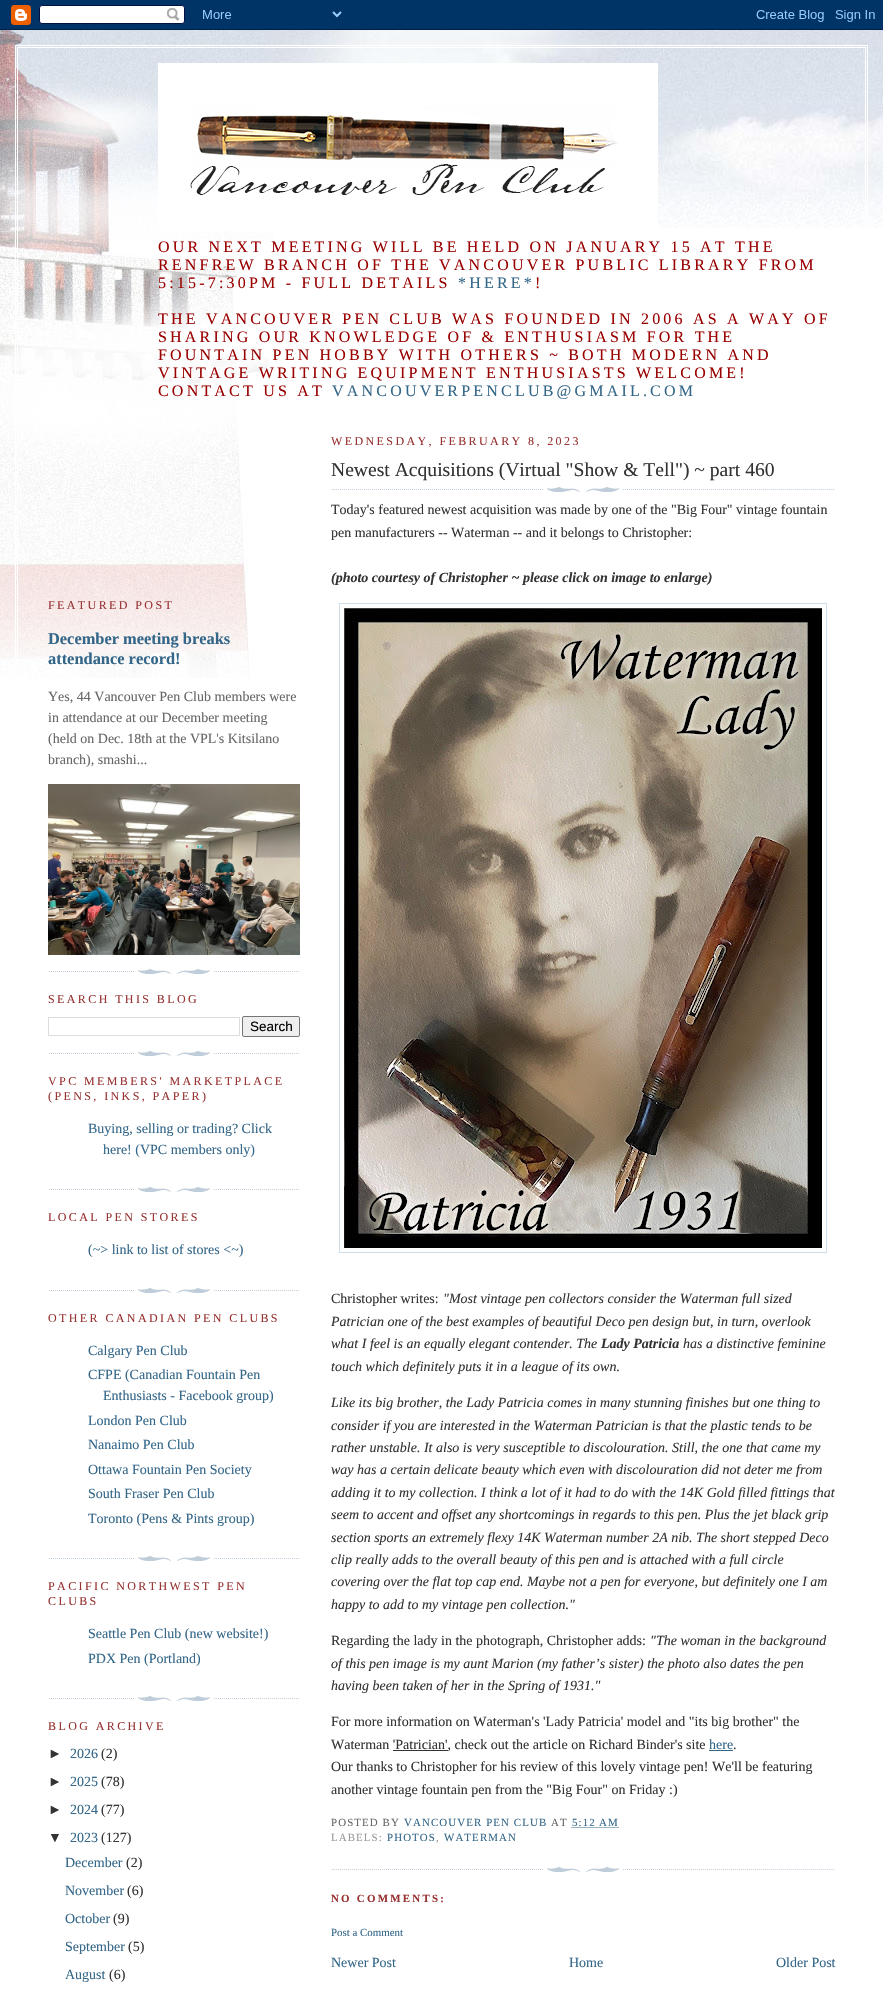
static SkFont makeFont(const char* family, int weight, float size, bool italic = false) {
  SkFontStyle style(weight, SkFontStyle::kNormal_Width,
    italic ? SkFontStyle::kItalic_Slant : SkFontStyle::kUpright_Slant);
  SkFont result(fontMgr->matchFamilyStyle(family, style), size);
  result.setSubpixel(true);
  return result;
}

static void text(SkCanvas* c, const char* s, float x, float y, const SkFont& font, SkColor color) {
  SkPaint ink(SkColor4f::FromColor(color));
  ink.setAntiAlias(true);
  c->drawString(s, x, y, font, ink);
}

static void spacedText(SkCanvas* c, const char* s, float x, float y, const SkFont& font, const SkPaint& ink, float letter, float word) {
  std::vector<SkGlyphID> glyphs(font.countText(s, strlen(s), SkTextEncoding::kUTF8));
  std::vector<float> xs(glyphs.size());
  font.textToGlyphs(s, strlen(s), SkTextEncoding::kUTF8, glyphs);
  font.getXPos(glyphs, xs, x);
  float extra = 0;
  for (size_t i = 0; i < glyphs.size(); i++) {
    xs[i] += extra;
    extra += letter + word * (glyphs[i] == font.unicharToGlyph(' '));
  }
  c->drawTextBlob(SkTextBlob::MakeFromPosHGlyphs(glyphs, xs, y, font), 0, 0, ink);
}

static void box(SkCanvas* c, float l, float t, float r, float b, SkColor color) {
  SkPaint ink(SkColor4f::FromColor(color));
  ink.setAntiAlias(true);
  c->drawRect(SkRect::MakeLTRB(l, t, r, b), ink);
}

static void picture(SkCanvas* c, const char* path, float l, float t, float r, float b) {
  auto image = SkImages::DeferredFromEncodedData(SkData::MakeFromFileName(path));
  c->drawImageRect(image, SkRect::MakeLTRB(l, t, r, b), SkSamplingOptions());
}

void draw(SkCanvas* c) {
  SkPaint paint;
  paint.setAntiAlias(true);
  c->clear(0xffffffff);
  picture(c, "img_01.png", 0, 0, 883, 30);
  picture(c, "img_02.png", 617, 30, 883, 228);
  picture(c, "img_03.png", 0, 30, 274, 678);
  picture(c, "img_04.png", 663, 105, 883, 190);
  picture(c, "img_05.png", 267, 30, 617, 63);
  paint.setStyle(SkPaint::kStroke_Style);
  paint.setStrokeWidth(1);
  paint.setColor(0xffffffff);
  c->drawRect(SkRect::MakeLTRB(15.5f, 45.5f, 867.5f, 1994.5f), paint);
  c->drawRect(SkRect::MakeLTRB(17.5f, 47.5f, 865.5f, 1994.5f), paint);
  picture(c, "img_06.png", 158, 63, 658, 231);
  SkFont face1 = makeFont("Liberation Serif", 400, 16);
  paint.setStyle(SkPaint::kFill_Style);
  paint.setColor(0xff990000);
  spacedText(c, "OUR NEXT MEETING WILL BE HELD ON JANUARY 15 AT THE", 158, 252, face1, paint, 3.2f, 0);
  spacedText(c, "RENFREW BRANCH OF THE VANCOUVER PUBLIC LIBRARY FROM", 158, 270, face1, paint, 3.2f, 0);
  spacedText(c, "5:15-7:30PM - FULL DETAILS", 158, 288, face1, paint, 3.2f, 0);
  paint.setColor(0xff336688);
  spacedText(c, "*HERE*", 458, 288, face1, paint, 3.2f, 0);
  paint.setColor(0xff990000);
  spacedText(c, "!", 535, 288, face1, paint, 3.2f, 0);
  spacedText(c, "THE VANCOUVER PEN CLUB WAS FOUNDED IN 2006 AS A WAY OF", 158, 324, face1, paint, 3.2f, 0);
  spacedText(c, "SHARING OUR KNOWLEDGE OF & ENTHUSIASM FOR THE", 158, 342, face1, paint, 3.2f, 0);
  spacedText(c, "FOUNTAIN PEN HOBBY WITH OTHERS ~ BOTH MODERN AND", 158, 360, face1, paint, 3.2f, 0);
  spacedText(c, "VINTAGE WRITING EQUIPMENT ENTHUSIASTS WELCOME!", 158, 378, face1, paint, 3.2f, 0);
  spacedText(c, "CONTACT US AT", 158, 396, face1, paint, 3.2f, 0);
  paint.setColor(0xff336688);
  spacedText(c, "VANCOUVERPENCLUB@GMAIL.COM", 332, 396, face1, paint, 3.2f, 0);
  picture(c, "img_07.png", 49, 969, 300, 974);
  SkFont face2 = makeFont("Liberation Serif", 400, 12);
  paint.setColor(0xff993333);
  spacedText(c, "FEATURED POST", 48, 609, face2, paint, 2.4f, 0);
  SkFont face3 = makeFont("Liberation Serif", 700, 16.4f);
  text(c, "December meeting breaks", 48, 644, face3, 0xff336688);
  text(c, "attendance record!", 48, 664, face3, 0xff336688);
  SkFont face4 = makeFont("Liberation Serif", 400, 14);
  text(c, "Yes, 44 Vancouver Pen Club members were", 48, 701, face4, 0xff666666);
  text(c, "in attendance at our December meeting", 48, 722, face4, 0xff666666);
  text(c, "(held on Dec. 18th at the VPL's Kitsilano", 48, 743, face4, 0xff666666);
  text(c, "branch), smashi...", 48, 764, face4, 0xff666666);
  picture(c, "img_08.png", 48, 784, 300, 955);
  picture(c, "img_07.png", 49, 1051, 300, 1056);
  spacedText(c, "SEARCH THIS BLOG", 48, 1003, face2, paint, 2.4f, 0);
  paint.setStyle(SkPaint::kStroke_Style);
  paint.setColor(0xffdddddd);
  c->drawRect(SkRect::MakeLTRB(48.5f, 1017.5f, 239.5f, 1035.5f), paint);
  paint.setStyle(SkPaint::kFill_Style);
  paint.setColor(0xffefefef);
  c->drawRoundRect(SkRect::MakeLTRB(242.5f, 1016.5f, 299.5f, 1036.5f), 1.5f, 1.5f, paint);
  paint.setStyle(SkPaint::kStroke_Style);
  paint.setColor(0xff767676);
  c->drawRoundRect(SkRect::MakeLTRB(242.5f, 1016.5f, 299.5f, 1036.5f), 1.5f, 1.5f, paint);
  SkFont face5 = makeFont("Liberation Sans", 400, 13.5f);
  text(c, "Search", 250, 1031, face5, 0xff000000);
  picture(c, "img_07.png", 49, 1187, 300, 1192);
  paint.setStyle(SkPaint::kFill_Style);
  paint.setColor(0xff993333);
  spacedText(c, "VPC MEMBERS' MARKETPLACE", 48, 1085, face2, paint, 2.4f, 0);
  spacedText(c, "(PENS, INKS, PAPER)", 48, 1100, face2, paint, 2.4f, 0);
  text(c, "Buying, selling or trading? Click", 88, 1133, face4, 0xff336688);
  text(c, "here! (VPC members only)", 103, 1154, face4, 0xff336688);
  picture(c, "img_07.png", 49, 1288, 300, 1293);
  spacedText(c, "LOCAL PEN STORES", 48, 1221, face2, paint, 2.4f, 0);
  text(c, "(~> link to list of stores <~)", 88, 1254, face4, 0xff336688);
  picture(c, "img_07.png", 49, 1556, 300, 1561);
  spacedText(c, "OTHER CANADIAN PEN CLUBS", 48, 1322, face2, paint, 2.4f, 0);
  text(c, "Calgary Pen Club", 88, 1355, face4, 0xff336688);
  text(c, "CFPE (Canadian Fountain Pen", 88, 1379, face4, 0xff336688);
  text(c, "Enthusiasts - Facebook group)", 103, 1400, face4, 0xff336688);
  text(c, "London Pen Club", 88, 1425, face4, 0xff336688);
  text(c, "Nanaimo Pen Club", 88, 1449, face4, 0xff336688);
  text(c, "Ottawa Fountain Pen Society", 88, 1474, face4, 0xff336688);
  text(c, "South Fraser Pen Club", 88, 1498, face4, 0xff336688);
  text(c, "Toronto (Pens & Pints group)", 88, 1523, face4, 0xff336688);
  picture(c, "img_07.png", 49, 1696, 300, 1701);
  spacedText(c, "PACIFIC NORTHWEST PEN", 48, 1590, face2, paint, 2.4f, 0);
  spacedText(c, "CLUBS", 48, 1605, face2, paint, 2.4f, 0);
  text(c, "Seattle Pen Club (new website!)", 88, 1638, face4, 0xff336688);
  text(c, "PDX Pen (Portland)", 88, 1663, face4, 0xff336688);
  spacedText(c, "BLOG ARCHIVE", 48, 1730, face2, paint, 2.4f, 0);
  SkFont face6 = makeFont("Liberation Sans", 400, 14);
  text(c, "►", 48, 1758, face6, 0xff333333);
  text(c, "2026", 70, 1758, face4, 0xff336688);
  text(c, "(2)", 101, 1758, face4, 0xff333333);
  text(c, "►", 48, 1786, face6, 0xff333333);
  text(c, "2025", 70, 1786, face4, 0xff336688);
  text(c, "(78)", 101, 1786, face4, 0xff333333);
  text(c, "►", 48, 1814, face6, 0xff333333);
  text(c, "2024", 70, 1814, face4, 0xff336688);
  text(c, "(77)", 101, 1814, face4, 0xff333333);
  text(c, "▼", 48, 1842, face6, 0xff333333);
  text(c, "2023", 70, 1842, face4, 0xff336688);
  text(c, "(127)", 101, 1842, face4, 0xff333333);
  text(c, "December", 65, 1867, face4, 0xff336688);
  text(c, "(2)", 126, 1867, face4, 0xff333333);
  text(c, "November", 65, 1895, face4, 0xff336688);
  text(c, "(6)", 127, 1895, face4, 0xff333333);
  text(c, "October", 65, 1923, face4, 0xff336688);
  text(c, "(9)", 113, 1923, face4, 0xff333333);
  text(c, "September", 65, 1951, face4, 0xff336688);
  text(c, "(5)", 128, 1951, face4, 0xff333333);
  text(c, "August", 65, 1979, face4, 0xff336688);
  text(c, "(6)", 109, 1979, face4, 0xff333333);
  spacedText(c, "WEDNESDAY, FEBRUARY 8, 2023", 331, 445, face2, paint, 2.4f, 0);
  SkFont face7 = makeFont("Liberation Serif", 400, 19.6f);
  text(c, "Newest Acquisitions (Virtual \"Show & Tell\") ~ part 460", 331, 476, face7, 0xff333333);
  picture(c, "img_09.png", 331, 487, 835, 492);
  text(c, "Today's featured newest acquisition was made by one of the \"Big Four\" vintage fountain", 331, 514, face4, 0xff333333);
  text(c, "pen manufacturers -- Waterman -- and it belongs to Christopher:", 331, 537, face4, 0xff333333);
  SkFont face8 = makeFont("Liberation Serif", 700, 14, true);
  text(c, "(photo courtesy of Christopher ~ please click on image to enlarge)", 331, 582, face8, 0xff333333);
  paint.setStyle(SkPaint::kStroke_Style);
  paint.setColor(0xffccddee);
  c->drawRect(SkRect::MakeLTRB(339.5f, 603.5f, 826.5f, 1252.5f), paint);
  picture(c, "img_10.png", 344, 608, 822, 1248);
  text(c, "Christopher writes:", 331, 1303, face4, 0xff333333);
  SkFont face9 = makeFont("Liberation Serif", 400, 14, true);
  text(c, "\"Most vintage pen collectors consider the Waterman full sized", 443, 1303, face9, 0xff333333);
  text(c, "Patrician one of the best examples of beautiful Deco pen design but, in turn, overlook", 331, 1326, face9, 0xff333333);
  text(c, "what I feel is an equally elegant contender. The", 331, 1348, face9, 0xff333333);
  text(c, "Lady Patricia", 601, 1348, face8, 0xff333333);
  text(c, "has a distinctive feminine", 683, 1348, face9, 0xff333333);
  text(c, "touch which definitely puts it in a league of its own.", 331, 1371, face9, 0xff333333);
  text(c, "Like its big brother, the Lady Patricia comes in many stunning finishes but one thing to", 331, 1407, face9, 0xff333333);
  text(c, "consider if you are interested in the Waterman Patrician is that the plastic tends to be", 331, 1430, face9, 0xff333333);
  text(c, "rather unstable. It also is very susceptible to discolouration. Still, the one that came my", 331, 1452, face9, 0xff333333);
  text(c, "way has a certain delicate beauty which even with discolouration did not deter me from", 331, 1474, face9, 0xff333333);
  text(c, "adding it to my collection. I think a lot of it had to do with the 14K Gold filled fittings that", 331, 1497, face9, 0xff333333);
  text(c, "seem to accent and offset any shortcomings in regards to this pen. Plus the jet black grip", 331, 1519, face9, 0xff333333);
  text(c, "section sports an extremely flexy 14K Waterman number 2A nib. The short stepped Deco", 331, 1542, face9, 0xff333333);
  text(c, "clip really adds to the overall beauty of this pen and is attached with a full circle", 331, 1564, face9, 0xff333333);
  text(c, "covering over the flat top cap end. Maybe not a pen for everyone, but definitely one I am", 331, 1586, face9, 0xff333333);
  text(c, "happy to add to my vintage pen collection.\"", 331, 1609, face9, 0xff333333);
  text(c, "Regarding the lady in the photograph, Christopher adds:", 331, 1645, face4, 0xff333333);
  text(c, "\"The woman in the background", 650, 1645, face9, 0xff333333);
  text(c, "of this pen image is my aunt Marion (my father’s sister) the photo also dates the pen", 331, 1668, face9, 0xff333333);
  text(c, "having been taken of her in the Spring of 1931.\"", 331, 1690, face9, 0xff333333);
  text(c, "For more information on Waterman's 'Lady Patricia' model and \"its big brother\" the", 331, 1726, face4, 0xff333333);
  text(c, "Waterman 'Patrician', check out the article on Richard Binder's site", 331, 1749, face4, 0xff333333);
  text(c, "here", 709, 1749, face4, 0xff336688);
  box(c, 709, 1750, 733, 1751, 0xff336688);
  text(c, ".", 733, 1749, face4, 0xff333333);
  box(c, 393, 1750, 448, 1751, 0xff333333);
  text(c, "Our thanks to Christopher for his review of this lovely vintage pen! We'll be featuring", 331, 1771, face4, 0xff333333);
  text(c, "another vintage fountain pen from the \"Big Four\" on Friday :)", 331, 1794, face4, 0xff333333);
  SkFont face10 = makeFont("Liberation Serif", 400, 10.9f);
  paint.setStyle(SkPaint::kFill_Style);
  paint.setColor(0xff666666);
  spacedText(c, "POSTED BY", 331, 1826, face10, paint, 1.1f, 0);
  paint.setColor(0xff336688);
  spacedText(c, "VANCOUVER PEN CLUB", 404, 1826, face10, paint, 1.1f, 0);
  paint.setColor(0xff666666);
  spacedText(c, "AT", 551, 1826, face10, paint, 1.1f, 0);
  paint.setColor(0xff336688);
  spacedText(c, "5:12 AM", 572, 1826, face10, paint, 1.1f, 0);
  paint.setStyle(SkPaint::kStroke_Style);
  paint.setPathEffect(SkDashPathEffect::Make({{1, 1}}, 0));
  c->drawPath(SkPathBuilder().moveTo(571.5f, 1827.5f).lineTo(618.5f, 1827.5f).detach(), paint);
  paint.setPathEffect(nullptr);
  paint.setStyle(SkPaint::kFill_Style);
  paint.setColor(0xff999999);
  spacedText(c, "LABELS:", 331, 1841, face10, paint, 1.1f, 0);
  paint.setColor(0xff336688);
  spacedText(c, "PHOTOS", 387, 1841, face10, paint, 1.1f, 0);
  paint.setColor(0xff999999);
  spacedText(c, ",", 436, 1841, face10, paint, 1.1f, 0);
  paint.setColor(0xff336688);
  spacedText(c, "WATERMAN", 444, 1841, face10, paint, 1.1f, 0);
  picture(c, "img_09.png", 331, 1867, 835, 1872);
  SkFont face11 = makeFont("Liberation Serif", 700, 10.9f);
  paint.setColor(0xff993333);
  spacedText(c, "NO COMMENTS:", 331, 1902, face11, paint, 2.25f, 0);
  text(c, "Post a Comment", 331, 1936, face10, 0xff336688);
  text(c, "Newer Post", 331, 1967, face4, 0xff336688);
  text(c, "Home", 569, 1967, face4, 0xff336688);
  text(c, "Older Post", 776, 1967, face4, 0xff336688);
}
